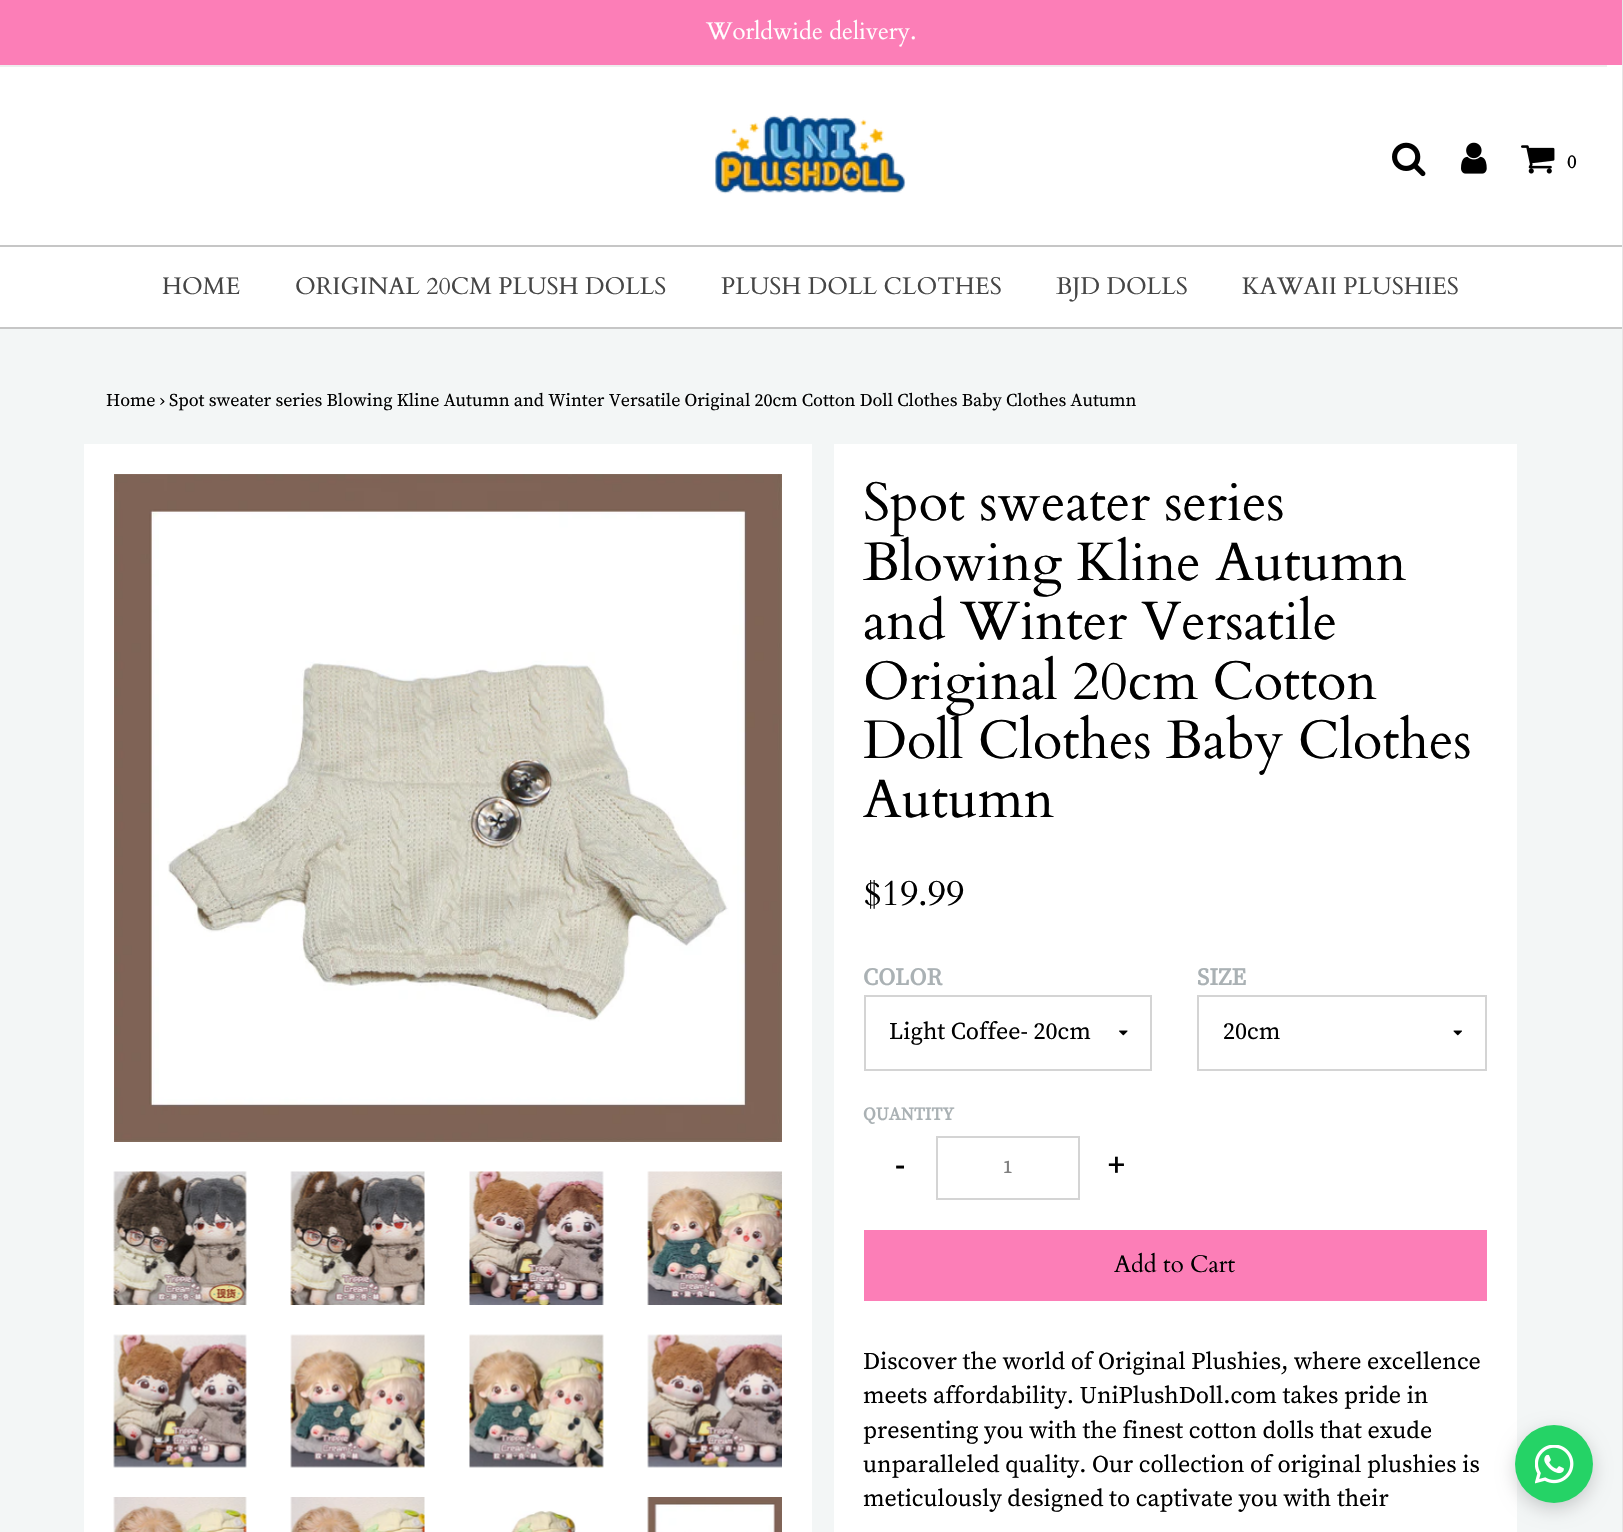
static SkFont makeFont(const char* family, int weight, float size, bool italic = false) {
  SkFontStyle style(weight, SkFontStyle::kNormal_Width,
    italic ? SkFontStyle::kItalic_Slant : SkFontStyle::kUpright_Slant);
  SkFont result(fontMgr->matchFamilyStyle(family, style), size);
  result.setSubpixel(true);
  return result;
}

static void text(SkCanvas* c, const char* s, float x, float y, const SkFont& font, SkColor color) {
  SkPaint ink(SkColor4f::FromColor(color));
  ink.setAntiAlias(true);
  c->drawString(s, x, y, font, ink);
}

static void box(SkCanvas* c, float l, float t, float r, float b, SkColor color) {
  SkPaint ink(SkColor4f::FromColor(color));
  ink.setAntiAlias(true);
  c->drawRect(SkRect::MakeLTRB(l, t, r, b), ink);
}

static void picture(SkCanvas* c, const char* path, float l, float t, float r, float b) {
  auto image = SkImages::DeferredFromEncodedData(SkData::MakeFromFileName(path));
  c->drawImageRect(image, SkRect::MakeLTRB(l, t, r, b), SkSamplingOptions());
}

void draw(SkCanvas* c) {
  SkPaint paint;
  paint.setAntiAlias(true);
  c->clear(0xfff3f6f6);
  box(c, 1622, 0, 1623, 1532, 0xffe6e6e6);
  box(c, 0, 0, 1622, 65, 0xfffc7eb7);
  SkFont face1 = makeFont("Cardo", 400, 24);
  text(c, "Worldwide delivery.", 706, 39, face1, 0xffffffff);
  box(c, 0, 65, 1622, 245, 0xffffffff);
  box(c, 0, 65, 1607, 67, 0xffeeeeee);
  picture(c, "img_01.png", 715, 115, 906, 194);
  picture(c, "img_02.png", 1392, 142, 1426, 177);
  picture(c, "img_03.png", 1461, 142, 1487, 174);
  picture(c, "img_04.png", 1521, 145, 1555, 174);
  SkFont face2 = makeFont("Cardo", 700, 18);
  text(c, "0", 1567, 168, face2, 0xff000000);
  box(c, 0, 247, 1622, 327, 0xffffffff);
  box(c, 0, 245, 1622, 247, 0xffc6c6c6);
  box(c, 0, 327, 1622, 329, 0xffc6c6c6);
  text(c, "HOME", 162, 294, face1, 0xff464646);
  text(c, "ORIGINAL 20CM PLUSH DOLLS", 295, 294, face1, 0xff464646);
  text(c, "PLUSH DOLL CLOTHES", 721, 294, face1, 0xff464646);
  text(c, "BJD DOLLS", 1056, 294, face1, 0xff464646);
  text(c, "KAWAII PLUSHIES", 1242, 294, face1, 0xff464646);
  SkFont face3 = makeFont("Source Serif Pro", 400, 18);
  text(c, "Home › Spot sweater series Blowing Kline Autumn and Winter Versatile Original 20cm Cotton Doll Clothes Baby Clothes Autumn", 106, 406, face3, 0xff000000);
  box(c, 84, 444, 812, 1532, 0xffffffff);
  picture(c, "img_05.png", 114, 474, 782, 1142);
  picture(c, "img_06.png", 113, 1171, 247, 1305);
  picture(c, "img_07.png", 290, 1171, 425, 1305);
  picture(c, "img_08.png", 469, 1171, 604, 1305);
  picture(c, "img_09.png", 647, 1171, 782, 1305);
  picture(c, "img_10.png", 113, 1334, 247, 1468);
  picture(c, "img_11.png", 290, 1334, 425, 1468);
  picture(c, "img_12.png", 469, 1334, 604, 1468);
  picture(c, "img_13.png", 647, 1334, 782, 1468);
  picture(c, "img_14.png", 113, 1497, 247, 1532);
  picture(c, "img_15.png", 290, 1497, 425, 1532);
  picture(c, "img_16.png", 511, 1510, 576, 1532);
  picture(c, "img_17.png", 647, 1497, 782, 1532);
  box(c, 834, 444, 1517, 1532, 0xffffffff);
  SkFont face4 = makeFont("Cardo", 400, 54);
  text(c, "Spot sweater series", 863, 520, face4, 0xff000000);
  text(c, "Blowing Kline Autumn", 863, 580, face4, 0xff000000);
  text(c, "and Winter Versatile", 863, 639, face4, 0xff000000);
  text(c, "Original 20cm Cotton", 863, 699, face4, 0xff000000);
  text(c, "Doll Clothes Baby Clothes", 863, 758, face4, 0xff000000);
  text(c, "Autumn", 863, 817, face4, 0xff000000);
  SkFont face5 = makeFont("Cardo", 400, 36);
  text(c, "$19.99", 863, 905, face5, 0xff000000);
  SkFont face6 = makeFont("Source Serif Pro", 700, 24);
  text(c, "COLOR", 863, 985, face6, 0xffaab1b4);
  paint.setStyle(SkPaint::kStroke_Style);
  paint.setStrokeWidth(2);
  paint.setColor(0xffd4d4d4);
  c->drawRect(SkRect::MakeLTRB(865, 996, 1151, 1070), paint);
  SkFont face7 = makeFont("Source Serif Pro", 400, 24);
  text(c, "Light Coffee- 20cm", 889, 1039, face7, 0xff000000);
  picture(c, "img_18.png", 1119, 1030, 1128, 1036);
  text(c, "SIZE", 1197, 985, face6, 0xffaab1b4);
  c->drawRect(SkRect::MakeLTRB(1198, 996, 1486, 1070), paint);
  text(c, "20cm", 1223, 1039, face7, 0xff000000);
  picture(c, "img_19.png", 1453, 1030, 1462, 1036);
  SkFont face8 = makeFont("Source Serif Pro", 700, 18);
  text(c, "QUANTITY", 863, 1120, face8, 0xffaab1b4);
  SkFont face9 = makeFont("Source Serif Pro", 700, 30);
  text(c, "-", 895, 1175, face9, 0xff000000);
  c->drawRect(SkRect::MakeLTRB(937, 1137, 1079, 1199), paint);
  text(c, "1", 1003, 1173, face8, 0xff808080);
  text(c, "+", 1108, 1175, face9, 0xff000000);
  box(c, 864, 1230, 1487, 1301, 0xfffc7eb7);
  text(c, "Add to Cart", 1114, 1272, face1, 0xff000000);
  text(c, "Discover the world of Original Plushies, where excellence", 863, 1369, face7, 0xff000000);
  text(c, "meets affordability. UniPlushDoll.com takes pride in", 863, 1403, face7, 0xff000000);
  text(c, "presenting you with the finest cotton dolls that exude", 863, 1438, face7, 0xff000000);
  text(c, "unparalleled quality. Our collection of original plushies is", 863, 1472, face7, 0xff000000);
  text(c, "meticulously designed to captivate you with their", 863, 1506, face7, 0xff000000);
  paint.setStyle(SkPaint::kFill_Style);
  paint.setColor(0x2e000000);
  paint.setMaskFilter(SkMaskFilter::MakeBlur(kNormal_SkBlurStyle, 9));
  c->drawRoundRect(SkRect::MakeLTRB(1515, 1431, 1593, 1509), 39, 39, paint);
  paint.setMaskFilter(nullptr);
  paint.setColor(0xff25d366);
  c->drawCircle(1554, 1464, 39, paint);
  picture(c, "img_20.png", 1535, 1445, 1574, 1484);
}
